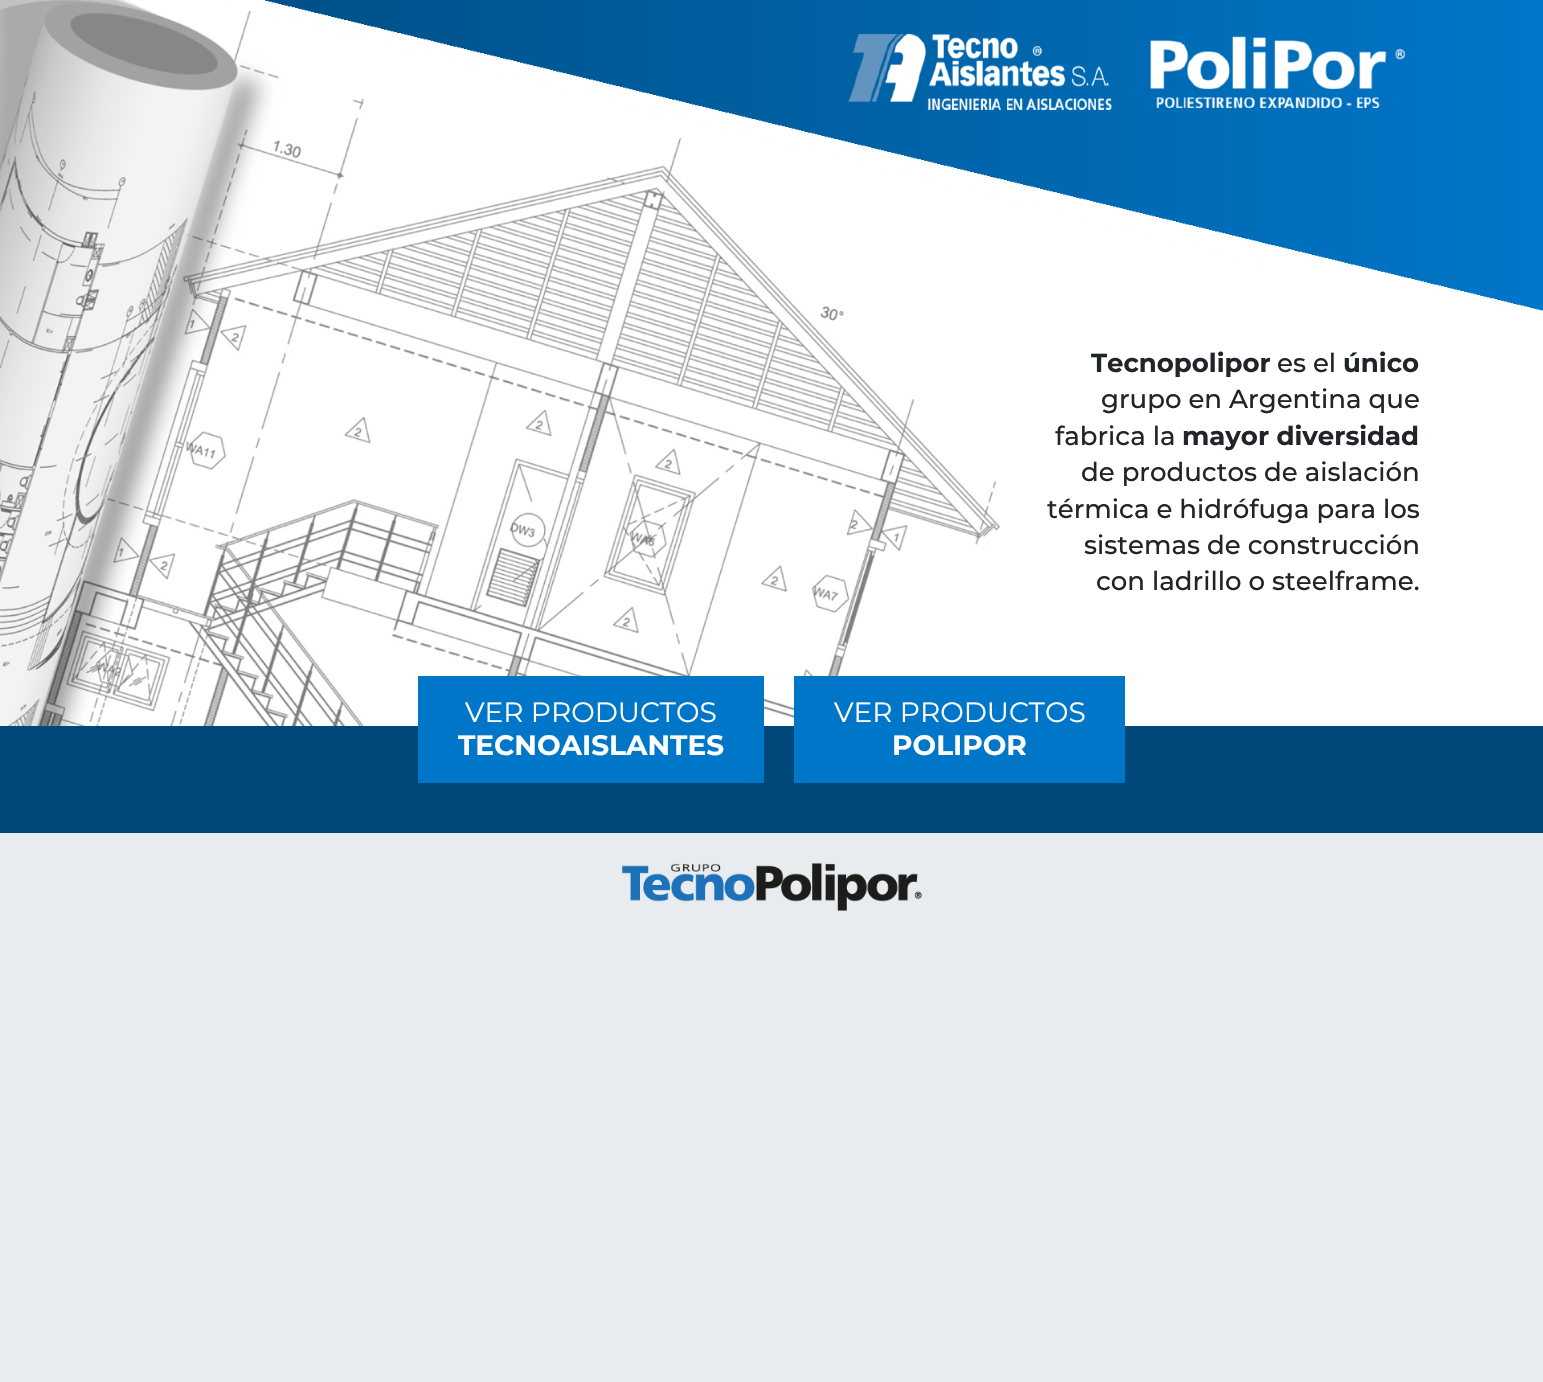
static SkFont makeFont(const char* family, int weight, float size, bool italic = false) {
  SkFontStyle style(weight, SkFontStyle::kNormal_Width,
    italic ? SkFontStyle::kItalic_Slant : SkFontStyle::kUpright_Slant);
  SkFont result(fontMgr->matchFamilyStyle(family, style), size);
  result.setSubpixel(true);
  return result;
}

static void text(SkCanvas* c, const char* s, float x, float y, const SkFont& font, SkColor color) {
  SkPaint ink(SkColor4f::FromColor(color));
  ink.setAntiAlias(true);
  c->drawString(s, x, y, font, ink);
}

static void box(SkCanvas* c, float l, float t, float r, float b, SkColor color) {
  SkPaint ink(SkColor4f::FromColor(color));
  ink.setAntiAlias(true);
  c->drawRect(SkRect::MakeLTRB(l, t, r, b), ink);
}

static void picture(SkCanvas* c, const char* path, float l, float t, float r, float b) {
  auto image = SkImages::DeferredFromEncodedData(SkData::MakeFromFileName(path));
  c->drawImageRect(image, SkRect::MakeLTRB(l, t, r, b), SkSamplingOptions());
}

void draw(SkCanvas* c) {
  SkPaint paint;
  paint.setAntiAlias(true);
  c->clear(0xffe9ecef);
  {
    const SkColor colors[] = {0xff00487a, 0xff0076c8};
    const float stops[] = {0, 1};
    const SkPoint ends[] = {{0, 363}, {1543, 363}};
    paint.setShader(SkGradientShader::MakeLinear(ends, colors, stops, 2, SkTileMode::kClamp));
    paint.setAlpha(255);
  }
  c->drawRect(SkRect::MakeLTRB(265, 0, 1543, 311), paint);
  picture(c, "img_01.png", 0, 0, 1543, 726);
  picture(c, "img_02.png", 848, 34, 1112, 110);
  picture(c, "img_03.png", 1150, 36, 1406, 109);
  SkFont face1 = makeFont("Montserrat", 700, 26);
  text(c, "Tecnopolipor", 1091, 372, face1, 0xff212529);
  SkFont face2 = makeFont("Montserrat", 500, 26);
  text(c, "es el", 1277, 372, face2, 0xff212529);
  text(c, "único", 1343, 372, face1, 0xff212529);
  text(c, "grupo en Argentina que", 1101, 408, face2, 0xff212529);
  text(c, "fabrica la", 1055, 445, face2, 0xff212529);
  text(c, "mayor diversidad", 1182, 445, face1, 0xff212529);
  text(c, "de productos de aislación", 1081, 481, face2, 0xff212529);
  text(c, "térmica e hidrófuga para los", 1047, 518, face2, 0xff212529);
  text(c, "sistemas de construcción", 1084, 554, face2, 0xff212529);
  text(c, "con ladrillo o steelframe.", 1096, 590, face2, 0xff212529);
  box(c, 0, 726, 1543, 833, 0xff00487a);
  box(c, 418, 676, 764, 783, 0xff0076c8);
  SkFont face3 = makeFont("Montserrat", 400, 28);
  text(c, "VER PRODUCTOS", 465, 722, face3, 0xffffffff);
  SkFont face4 = makeFont("Montserrat", 700, 28);
  text(c, "TECNOAISLANTES", 458, 755, face4, 0xffffffff);
  box(c, 794, 676, 1125, 783, 0xff0076c8);
  text(c, "VER PRODUCTOS", 834, 722, face3, 0xffffffff);
  text(c, "POLIPOR", 892, 755, face4, 0xffffffff);
  picture(c, "img_04.png", 622, 863, 922, 911);
}
